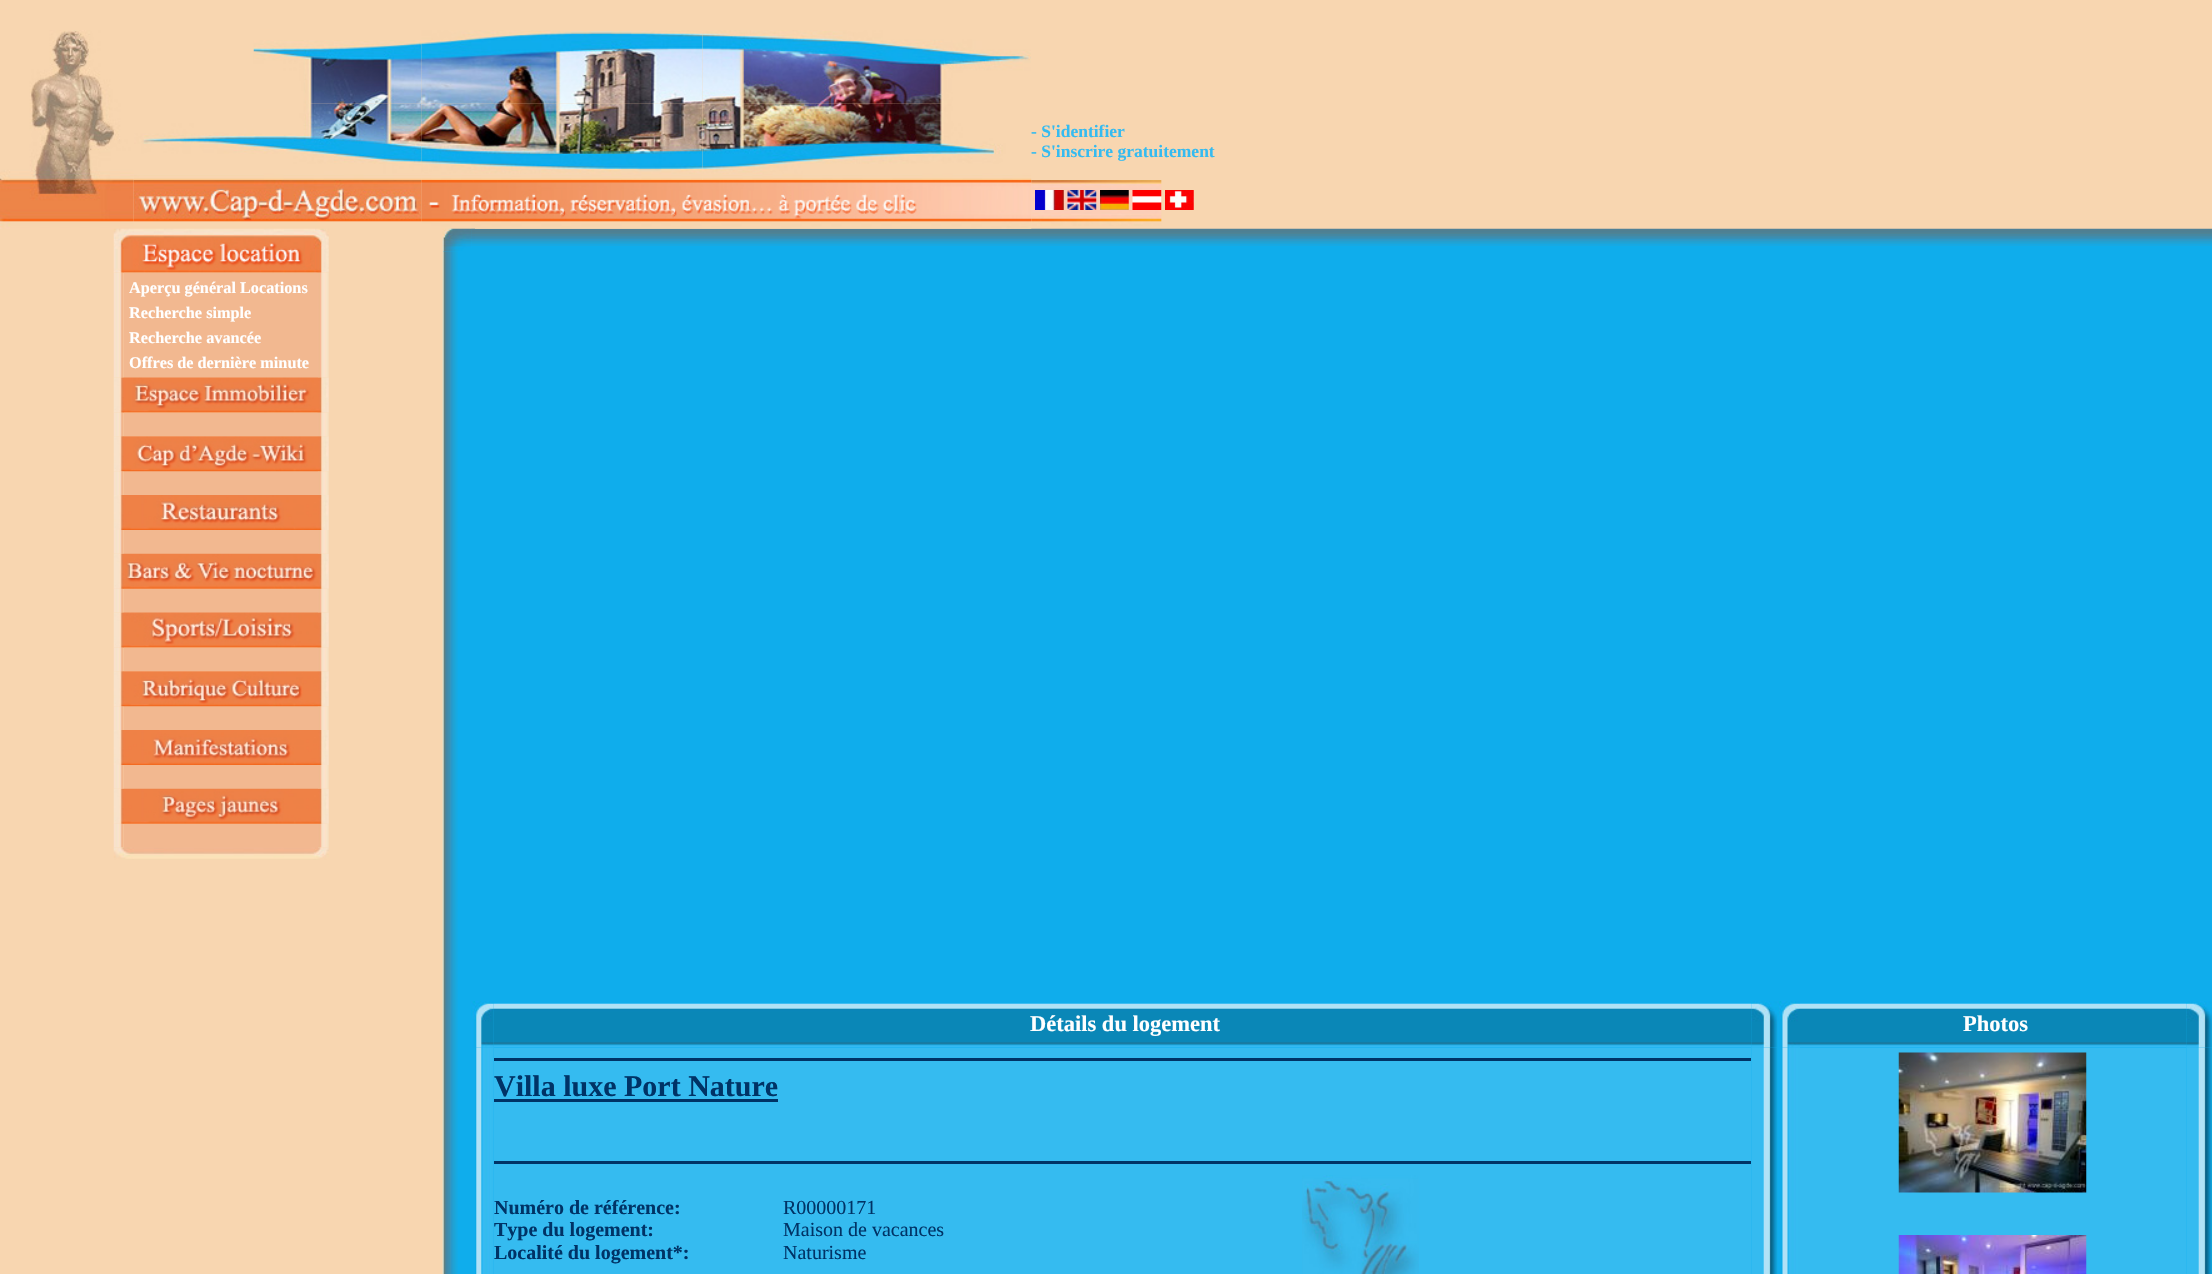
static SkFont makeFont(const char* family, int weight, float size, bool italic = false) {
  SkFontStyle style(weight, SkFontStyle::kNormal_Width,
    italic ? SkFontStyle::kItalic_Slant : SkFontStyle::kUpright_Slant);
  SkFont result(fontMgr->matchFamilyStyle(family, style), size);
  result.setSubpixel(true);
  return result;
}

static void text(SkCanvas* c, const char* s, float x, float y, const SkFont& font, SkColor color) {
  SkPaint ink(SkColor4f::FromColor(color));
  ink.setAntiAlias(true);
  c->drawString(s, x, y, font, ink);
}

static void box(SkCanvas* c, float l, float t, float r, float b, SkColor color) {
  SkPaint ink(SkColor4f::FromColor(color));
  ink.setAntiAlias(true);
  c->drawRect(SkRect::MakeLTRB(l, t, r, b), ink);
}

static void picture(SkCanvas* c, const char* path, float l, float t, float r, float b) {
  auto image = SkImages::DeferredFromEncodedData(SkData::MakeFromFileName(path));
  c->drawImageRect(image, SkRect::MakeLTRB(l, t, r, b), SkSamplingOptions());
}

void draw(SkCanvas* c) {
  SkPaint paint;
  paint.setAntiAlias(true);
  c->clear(0xff0fadec);
  box(c, 0, 0, 2212, 229, 0xfff8d6b0);
  picture(c, "img_01.png", 0, 30, 134, 229);
  picture(c, "img_02.png", 253, 40, 422, 104);
  picture(c, "img_03.png", 421, 30, 703, 104);
  picture(c, "img_04.png", 702, 30, 1031, 104);
  picture(c, "img_05.png", 134, 103, 422, 180);
  picture(c, "img_06.png", 421, 103, 703, 180);
  picture(c, "img_07.png", 702, 103, 1032, 180);
  SkFont face1 = makeFont("Liberation Serif", 700, 17.5f);
  text(c, "- S'identifier", 1031, 137, face1, 0xff35bbf0);
  text(c, "- S'inscrire gratuitement", 1031, 157, face1, 0xff35bbf0);
  picture(c, "img_08.png", 133, 180, 422, 222);
  picture(c, "img_10.png", 1031, 180, 1162, 226);
  picture(c, "img_42.png", 471, 228, 2212, 246);
  picture(c, "img_09.png", 421, 180, 1032, 229);
  picture(c, "img_11.png", 1035, 190, 1064, 210);
  picture(c, "img_12.png", 1067, 190, 1097, 210);
  picture(c, "img_13.png", 1100, 190, 1129, 210);
  picture(c, "img_14.png", 1132, 190, 1162, 210);
  picture(c, "img_15.png", 1165, 190, 1194, 210);
  box(c, 0, 229, 443, 1274, 0xfff8d6b0);
  picture(c, "img_17.png", 113, 272, 124, 378);
  box(c, 124, 273, 318, 378, 0xfff2b890);
  picture(c, "img_18.png", 317, 272, 329, 378);
  picture(c, "img_16.png", 113, 228, 329, 273);
  SkFont face2 = makeFont("Liberation Serif", 700, 16.25f);
  text(c, "Aperçu général Locations", 129, 293, face2, 0xffffffff);
  text(c, "Recherche simple", 129, 318, face2, 0xffffffff);
  text(c, "Recherche avancée", 129, 343, face2, 0xffffffff);
  text(c, "Offres de dernière minute", 129, 368, face2, 0xffffffff);
  picture(c, "img_20.png", 113, 412, 124, 437);
  box(c, 124, 413, 318, 436, 0xfff2b890);
  picture(c, "img_21.png", 317, 412, 329, 437);
  picture(c, "img_19.png", 113, 377, 329, 413);
  picture(c, "img_23.png", 113, 471, 124, 495);
  box(c, 124, 471, 318, 495, 0xfff2b890);
  picture(c, "img_24.png", 318, 471, 329, 495);
  picture(c, "img_22.png", 113, 436, 329, 472);
  picture(c, "img_25.png", 113, 495, 329, 530);
  picture(c, "img_26.png", 113, 530, 124, 554);
  box(c, 124, 530, 318, 554, 0xfff2b890);
  picture(c, "img_27.png", 318, 530, 329, 554);
  picture(c, "img_29.png", 113, 588, 124, 613);
  box(c, 124, 589, 318, 613, 0xfff2b890);
  picture(c, "img_30.png", 317, 588, 329, 613);
  picture(c, "img_28.png", 113, 553, 329, 589);
  picture(c, "img_32.png", 113, 647, 124, 672);
  box(c, 124, 648, 318, 671, 0xfff2b890);
  picture(c, "img_21.png", 317, 647, 329, 672);
  picture(c, "img_31.png", 113, 612, 329, 648);
  picture(c, "img_34.png", 113, 706, 124, 730);
  box(c, 124, 706, 318, 730, 0xfff2b890);
  picture(c, "img_35.png", 318, 706, 329, 730);
  picture(c, "img_33.png", 113, 671, 329, 707);
  picture(c, "img_36.png", 113, 730, 329, 765);
  picture(c, "img_26.png", 113, 765, 124, 789);
  box(c, 124, 765, 318, 789, 0xfff2b890);
  picture(c, "img_27.png", 318, 765, 329, 789);
  picture(c, "img_38.png", 113, 823, 124, 848);
  box(c, 124, 824, 318, 848, 0xfff2b890);
  picture(c, "img_39.png", 317, 823, 329, 848);
  picture(c, "img_37.png", 113, 788, 329, 824);
  picture(c, "img_40.png", 113, 847, 329, 860);
  picture(c, "img_44.png", 442, 251, 458, 1274);
  picture(c, "img_41.png", 442, 228, 472, 252);
  picture(c, "img_43.png", 471, 228, 475, 242);
  picture(c, "img_45.png", 471, 1001, 494, 1048);
  picture(c, "img_46.png", 493, 1003, 1752, 1048);
  SkFont face3 = makeFont("Liberation Serif", 700, 22.5f);
  text(c, "Détails du logement", 1030, 1031, face3, 0xffffffff);
  picture(c, "img_47.png", 1751, 1001, 1778, 1048);
  picture(c, "img_48.png", 475, 1047, 494, 1274);
  box(c, 494, 1048, 1751, 1274, 0xff35bbf0);
  box(c, 494, 1058, 1751, 1061, 0xff003366);
  SkFont face4 = makeFont("Liberation Serif", 700, 30);
  text(c, "Villa luxe Port Nature", 494, 1096, face4, 0xff003366);
  box(c, 494, 1099, 778, 1102, 0xff003366);
  box(c, 494, 1161, 1751, 1164, 0xff003366);
  SkFont face5 = makeFont("Liberation Serif", 700, 20);
  text(c, "Numéro de référence:", 494, 1214, face5, 0xff003366);
  SkFont face6 = makeFont("Liberation Serif", 400, 20);
  text(c, "R00000171", 783, 1214, face6, 0xff003366);
  picture(c, "img_49.png", 1302, 1175, 1419, 1274);
  text(c, "Type du logement:", 494, 1236, face5, 0xff003366);
  text(c, "Maison de vacances", 783, 1236, face6, 0xff003366);
  text(c, "Localité du logement*:", 494, 1259, face5, 0xff003366);
  text(c, "Naturisme", 783, 1259, face6, 0xff003366);
  picture(c, "img_50.png", 1751, 1047, 1778, 1274);
  picture(c, "img_51.png", 1777, 1001, 1800, 1048);
  picture(c, "img_52.png", 1800, 1003, 2187, 1048);
  text(c, "Photos", 1963, 1031, face3, 0xffffffff);
  picture(c, "img_53.png", 2186, 1001, 2212, 1048);
  picture(c, "img_54.png", 1777, 1047, 1800, 1274);
  box(c, 1800, 1048, 2186, 1274, 0xff35bbf0);
  picture(c, "img_55.png", 1898, 1052, 2087, 1193);
  picture(c, "img_56.png", 1898, 1235, 2087, 1274);
  picture(c, "img_57.png", 2186, 1047, 2212, 1274);
}
